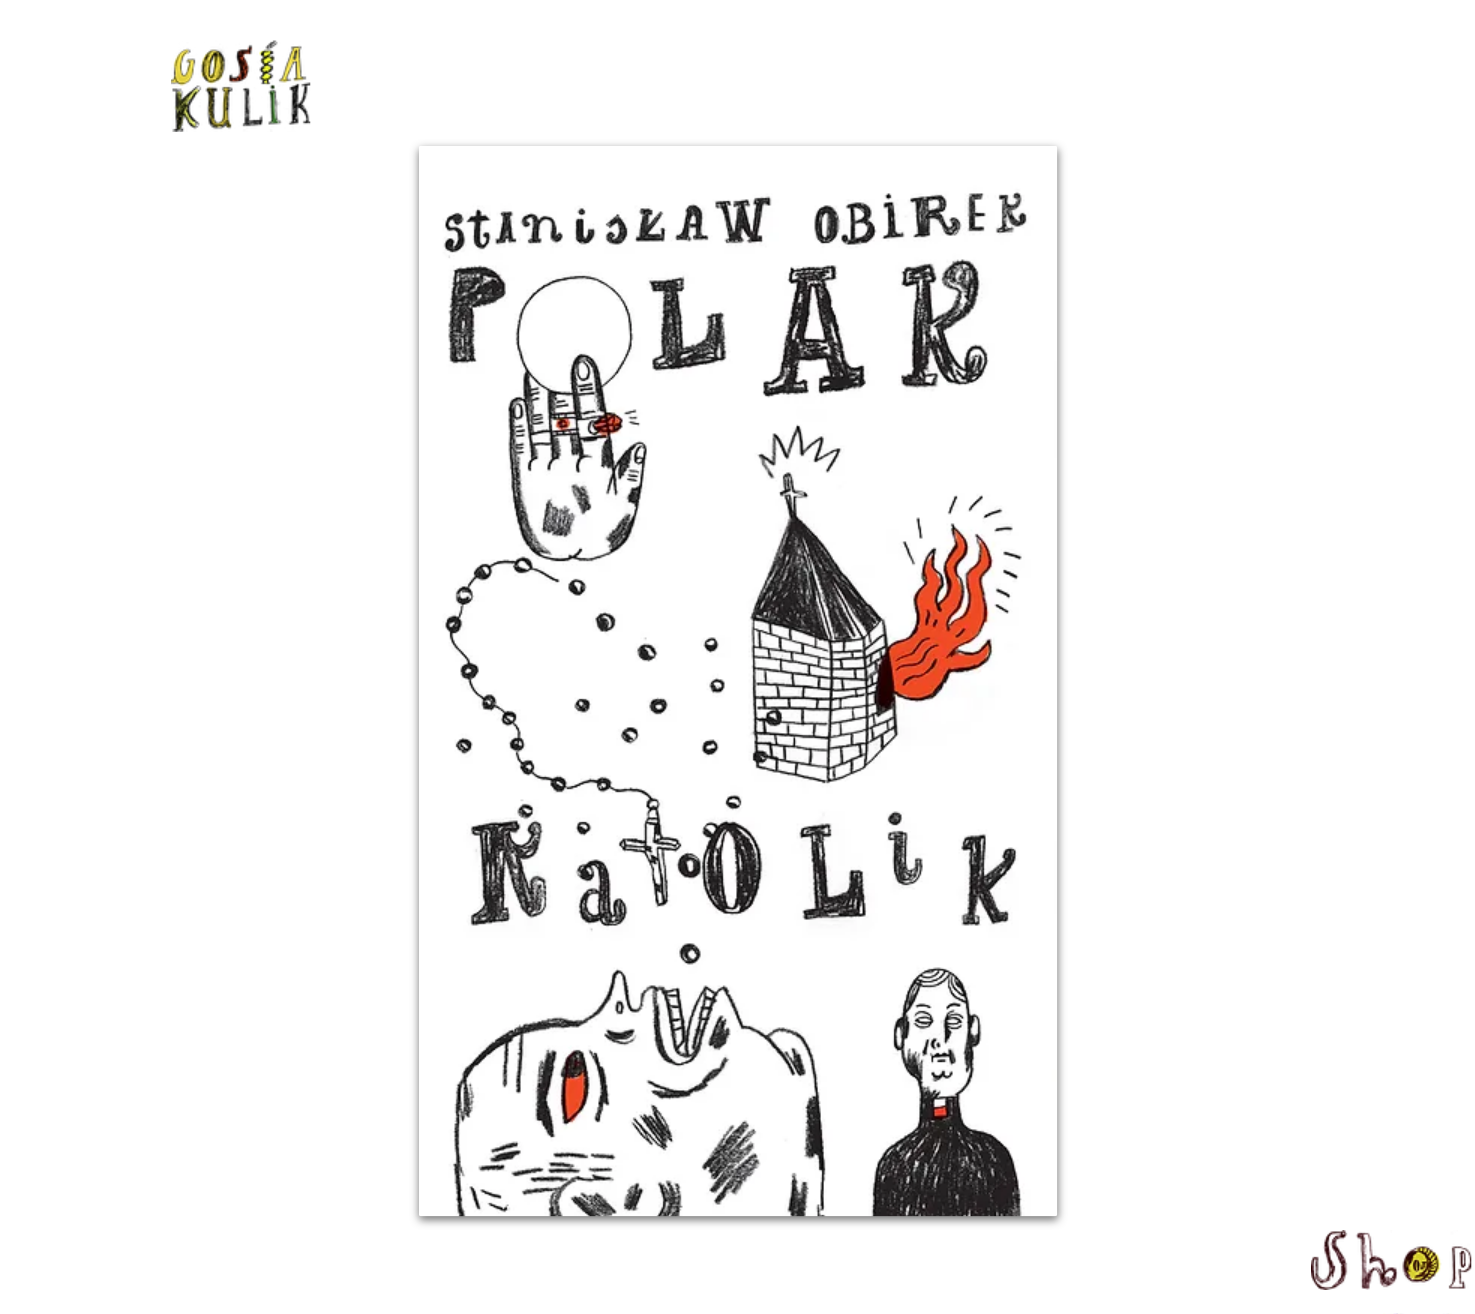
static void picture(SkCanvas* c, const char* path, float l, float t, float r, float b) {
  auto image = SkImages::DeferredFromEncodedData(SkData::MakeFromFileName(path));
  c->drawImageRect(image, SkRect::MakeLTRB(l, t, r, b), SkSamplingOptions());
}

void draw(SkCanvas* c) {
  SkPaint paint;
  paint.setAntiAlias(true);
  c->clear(0xffffffff);
  picture(c, "img_01.png", 171, 40, 311, 132);
  paint.setColor(0x87000000);
  paint.setMaskFilter(SkMaskFilter::MakeBlur(kNormal_SkBlurStyle, 4));
  c->drawRoundRect(SkRect::MakeLTRB(419, 149, 1058, 1220), 3, 3, paint);
  paint.setMaskFilter(nullptr);
  picture(c, "img_02.png", 419, 146, 1058, 1217);
  picture(c, "img_03.png", 1311, 1230, 1472, 1290);
  picture(c, "img_04.png", 1383, 1313, 1452, 1314);
}
